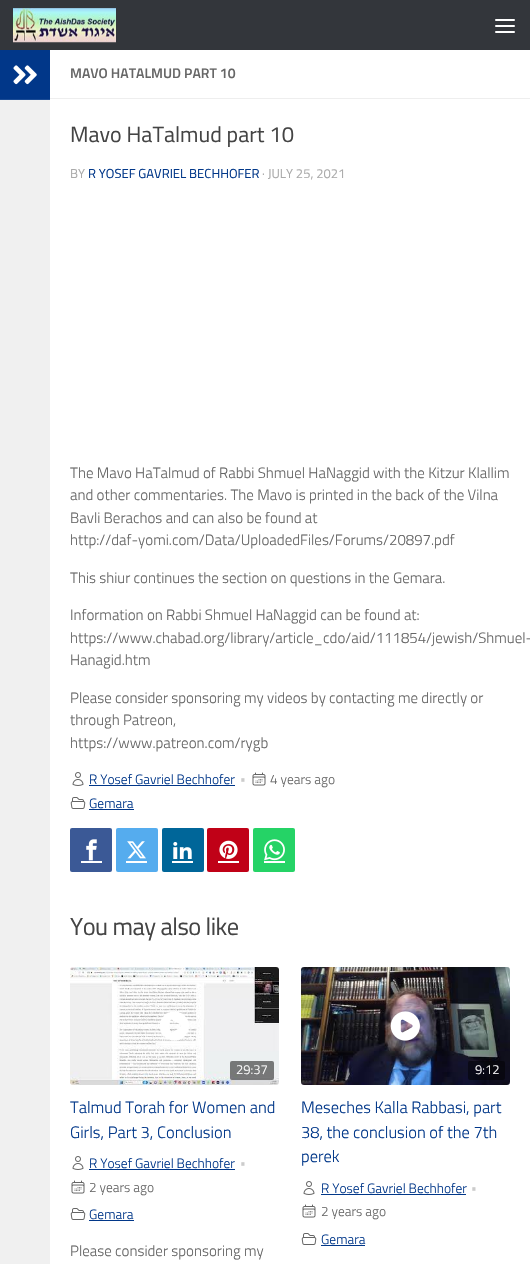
static SkFont makeFont(const char* family, int weight, float size, bool italic = false) {
  SkFontStyle style(weight, SkFontStyle::kNormal_Width,
    italic ? SkFontStyle::kItalic_Slant : SkFontStyle::kUpright_Slant);
  SkFont result(fontMgr->matchFamilyStyle(family, style), size);
  result.setSubpixel(true);
  return result;
}

static void text(SkCanvas* c, const char* s, float x, float y, const SkFont& font, SkColor color) {
  SkPaint ink(SkColor4f::FromColor(color));
  ink.setAntiAlias(true);
  c->drawString(s, x, y, font, ink);
}

static void spacedText(SkCanvas* c, const char* s, float x, float y, const SkFont& font, const SkPaint& ink, float letter, float word) {
  std::vector<SkGlyphID> glyphs(font.countText(s, strlen(s), SkTextEncoding::kUTF8));
  std::vector<float> xs(glyphs.size());
  font.textToGlyphs(s, strlen(s), SkTextEncoding::kUTF8, glyphs);
  font.getXPos(glyphs, xs, x);
  float extra = 0;
  for (size_t i = 0; i < glyphs.size(); i++) {
    xs[i] += extra;
    extra += letter + word * (glyphs[i] == font.unicharToGlyph(' '));
  }
  c->drawTextBlob(SkTextBlob::MakeFromPosHGlyphs(glyphs, xs, y, font), 0, 0, ink);
}

static void box(SkCanvas* c, float l, float t, float r, float b, SkColor color) {
  SkPaint ink(SkColor4f::FromColor(color));
  ink.setAntiAlias(true);
  c->drawRect(SkRect::MakeLTRB(l, t, r, b), ink);
}

static void roundBox(SkCanvas* c, float l, float t, float r, float b, float radius, SkColor color) {
  SkPaint ink(SkColor4f::FromColor(color));
  ink.setAntiAlias(true);
  c->drawRoundRect(SkRect::MakeLTRB(l, t, r, b), radius, radius, ink);
}

static void picture(SkCanvas* c, const char* path, float l, float t, float r, float b) {
  auto image = SkImages::DeferredFromEncodedData(SkData::MakeFromFileName(path));
  c->drawImageRect(image, SkRect::MakeLTRB(l, t, r, b), SkSamplingOptions());
}

void draw(SkCanvas* c) {
  SkPaint paint;
  paint.setAntiAlias(true);
  c->clear(0xffffffff);
  box(c, 0, 0, 530, 50, 0xff33363b);
  picture(c, "img_01.png", 13, 8, 116, 43);
  roundBox(c, 495, 19, 515, 21, 1, 0xffffffff);
  roundBox(c, 495, 25, 515, 27, 1, 0xffffffff);
  roundBox(c, 495, 31, 515, 33, 1, 0xffffffff);
  box(c, 0, 100, 50, 1264, 0xfff0f0f0);
  box(c, 0, 50, 50, 99, 0xff013789);
  box(c, 0, 99, 50, 100, 0xff1a4b95);
  picture(c, "img_02.png", 13, 65, 37, 85);
  box(c, 50, 98, 530, 99, 0xffeeeeee);
  SkFont face1 = makeFont("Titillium", 600, 14);
  text(c, "MAVO HATALMUD PART 10", 70, 78, face1, 0xff666666);
  SkFont face2 = makeFont("Titillium", 400, 22);
  text(c, "Mavo HaTalmud part 10", 70, 142, face2, 0xff444444);
  SkFont face3 = makeFont("Titillium", 400, 13);
  text(c, "BY", 70, 178, face3, 0xffaaaaaa);
  text(c, "R YOSEF GAVRIEL BECHHOFER", 88, 178, face3, 0xff013789);
  text(c, "· JULY 25, 2021", 262, 178, face3, 0xffaaaaaa);
  SkFont face4 = makeFont("Titillium", 300, 15);
  text(c, "The Mavo HaTalmud of Rabbi Shmuel HaNaggid with the Kitzur Klallim", 70, 478, face4, 0xff666666);
  text(c, "and other commentaries. The Mavo is printed in the back of the Vilna", 70, 500, face4, 0xff666666);
  text(c, "Bavli Berachos and can also be found at", 70, 523, face4, 0xff666666);
  text(c, "http://daf-yomi.com/Data/UploadedFiles/Forums/20897.pdf", 70, 545, face4, 0xff666666);
  text(c, "This shiur continues the section on questions in the Gemara.", 70, 583, face4, 0xff666666);
  text(c, "Information on Rabbi Shmuel HaNaggid can be found at:", 70, 620, face4, 0xff666666);
  text(c, "https://www.chabad.org/library/article_cdo/aid/111854/jewish/Shmuel-", 70, 643, face4, 0xff666666);
  text(c, "Hanagid.htm", 70, 665, face4, 0xff666666);
  text(c, "Please consider sponsoring my videos by contacting me directly or", 70, 703, face4, 0xff666666);
  text(c, "through Patreon,", 70, 725, face4, 0xff666666);
  text(c, "https://www.patreon.com/rygb", 70, 748, face4, 0xff666666);
  picture(c, "img_03.png", 72, 772, 84, 786);
  SkFont face5 = makeFont("Titillium", 300, 13.5f);
  text(c, "R Yosef Gavriel Bechhofer", 89, 784, face5, 0xff013789);
  box(c, 89, 785, 235, 786, 0xff013789);
  SkFont face6 = makeFont("Titillium", 300, 12);
  text(c, "•", 240, 783, face6, 0xffcccccc);
  picture(c, "img_04.png", 252, 772, 266, 786);
  text(c, "4 years ago", 270, 784, face5, 0xff666666);
  picture(c, "img_05.png", 70, 797, 86, 809);
  text(c, "Gemara", 89, 808, face5, 0xff013789);
  box(c, 89, 809, 134, 810, 0xff013789);
  roundBox(c, 70, 828, 112, 872, 2, 0xff3b5996);
  picture(c, "img_06.png", 86, 839, 97, 861);
  box(c, 81, 861, 102, 863, 0xffffffff);
  roundBox(c, 116, 828, 158, 872, 2, 0xff55acee);
  picture(c, "img_07.png", 127, 841, 146, 859);
  box(c, 126, 861, 147, 863, 0xffffffff);
  roundBox(c, 162, 828, 204, 872, 2, 0xff006699);
  picture(c, "img_08.png", 173, 842, 192, 859);
  box(c, 172, 861, 193, 863, 0xffffffff);
  roundBox(c, 207, 828, 249, 872, 2, 0xffc00117);
  picture(c, "img_09.png", 219, 840, 238, 859);
  box(c, 218, 861, 239, 863, 0xffffffff);
  roundBox(c, 253, 828, 295, 872, 2, 0xff25d366);
  picture(c, "img_10.png", 264, 839, 285, 861);
  box(c, 264, 861, 285, 863, 0xffffffff);
  SkFont face7 = makeFont("Titillium", 400, 24.5f);
  paint.setColor(0xff444444);
  spacedText(c, "You may also like", 70, 935, face7, paint, -0.5f, 0);
  picture(c, "img_11.png", 70, 967, 279, 1085);
  picture(c, "img_12.png", 160, 1012, 189, 1041);
  roundBox(c, 230, 1061, 274, 1080, 2, 0x80000000);
  SkFont face8 = makeFont("Titillium", 300, 13);
  text(c, "29:37", 236, 1074, face8, 0xffffffff);
  SkFont face9 = makeFont("Titillium", 300, 16.5f);
  text(c, "Talmud Torah for Women and", 70, 1113, face9, 0xff013789);
  text(c, "Girls, Part 3, Conclusion", 70, 1138, face9, 0xff013789);
  picture(c, "img_03.png", 72, 1156, 84, 1170);
  text(c, "R Yosef Gavriel Bechhofer", 89, 1168, face5, 0xff013789);
  box(c, 89, 1169, 235, 1170, 0xff013789);
  text(c, "•", 240, 1167, face6, 0xffcccccc);
  picture(c, "img_04.png", 71, 1180, 85, 1194);
  text(c, "2 years ago", 89, 1192, face5, 0xff666666);
  picture(c, "img_05.png", 70, 1208, 86, 1220);
  text(c, "Gemara", 89, 1219, face5, 0xff013789);
  box(c, 89, 1220, 134, 1221, 0xff013789);
  text(c, "Please consider sponsoring my", 70, 1256, face4, 0xff666666);
  picture(c, "img_13.png", 301, 967, 510, 1085);
  picture(c, "img_14.png", 390, 1011, 420, 1041);
  roundBox(c, 468, 1061, 505, 1080, 2, 0x80000000);
  text(c, "9:12", 475, 1074, face8, 0xffffffff);
  text(c, "Meseches Kalla Rabbasi, part", 301, 1113, face9, 0xff013789);
  text(c, "38, the conclusion of the 7th", 301, 1138, face9, 0xff013789);
  text(c, "perek", 301, 1162, face9, 0xff013789);
  picture(c, "img_03.png", 303, 1181, 315, 1195);
  text(c, "R Yosef Gavriel Bechhofer", 321, 1193, face5, 0xff013789);
  box(c, 321, 1194, 466, 1195, 0xff013789);
  text(c, "•", 471, 1192, face6, 0xffcccccc);
  picture(c, "img_04.png", 302, 1204, 316, 1218);
  text(c, "2 years ago", 321, 1216, face5, 0xff666666);
  picture(c, "img_05.png", 301, 1233, 317, 1245);
  text(c, "Gemara", 321, 1244, face5, 0xff013789);
  box(c, 321, 1245, 365, 1246, 0xff013789);
}
